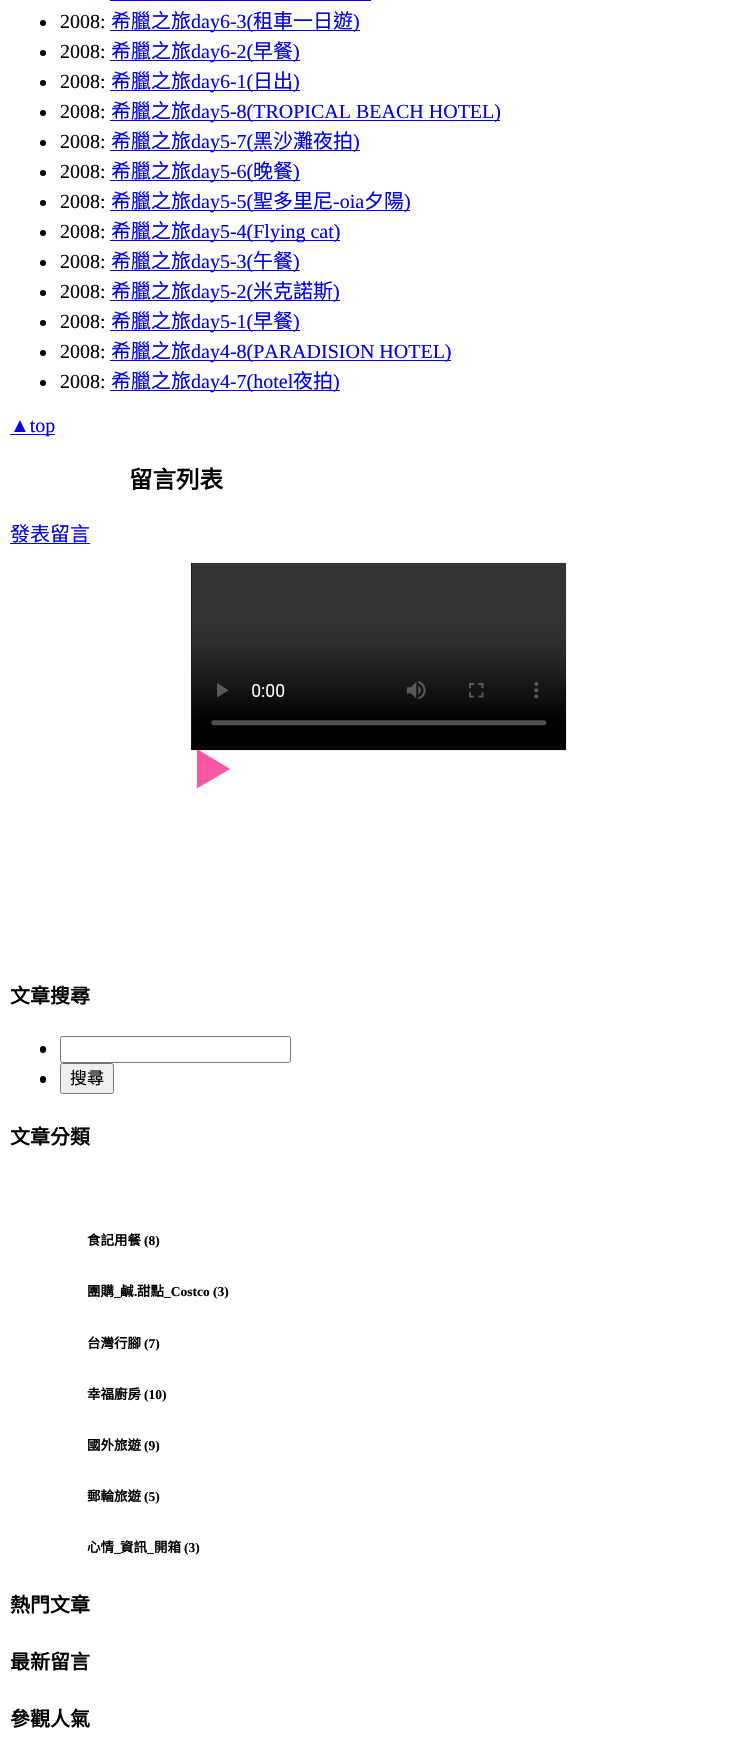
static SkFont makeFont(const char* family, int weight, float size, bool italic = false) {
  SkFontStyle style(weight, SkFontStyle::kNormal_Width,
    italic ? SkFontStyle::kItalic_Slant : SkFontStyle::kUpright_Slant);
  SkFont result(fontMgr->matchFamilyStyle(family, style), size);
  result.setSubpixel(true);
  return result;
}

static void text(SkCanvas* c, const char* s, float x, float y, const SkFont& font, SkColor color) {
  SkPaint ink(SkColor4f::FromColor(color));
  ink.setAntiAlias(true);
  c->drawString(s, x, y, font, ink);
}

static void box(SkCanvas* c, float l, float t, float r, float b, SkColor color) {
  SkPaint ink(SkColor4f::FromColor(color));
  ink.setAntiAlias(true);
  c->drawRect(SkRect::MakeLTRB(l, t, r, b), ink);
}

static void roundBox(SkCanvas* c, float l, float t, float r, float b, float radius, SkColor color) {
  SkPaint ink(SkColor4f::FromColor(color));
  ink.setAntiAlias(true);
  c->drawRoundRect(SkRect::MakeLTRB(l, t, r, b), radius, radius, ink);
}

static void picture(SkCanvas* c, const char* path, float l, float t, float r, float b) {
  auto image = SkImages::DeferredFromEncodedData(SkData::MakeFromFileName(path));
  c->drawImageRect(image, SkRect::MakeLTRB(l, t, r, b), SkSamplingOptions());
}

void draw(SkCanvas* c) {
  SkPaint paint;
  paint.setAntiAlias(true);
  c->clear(0xffffffff);
  box(c, 110, 0, 371, 1, 0xff0000ee);
  paint.setColor(0xff000000);
  c->drawCircle(43, 23, 3, paint);
  SkFont face1 = makeFont("Liberation Serif", 400, 20);
  text(c, "2008:", 60, 28, face1, 0xff000000);
  SkFont face2 = makeFont("Noto Sans CJK TC", 400, 20);
  text(c, "希臘之旅", 111, 28, face2, 0xff0000ee);
  box(c, 110, 30, 360, 31, 0xff0000ee);
  text(c, "day6-3(", 191, 28, face1, 0xff0000ee);
  text(c, "租車一日遊", 253, 28, face2, 0xff0000ee);
  text(c, ")", 353, 28, face1, 0xff0000ee);
  c->drawCircle(43, 53, 3, paint);
  text(c, "2008:", 60, 58, face1, 0xff000000);
  text(c, "希臘之旅", 111, 58, face2, 0xff0000ee);
  box(c, 110, 60, 300, 61, 0xff0000ee);
  text(c, "day6-2(", 191, 58, face1, 0xff0000ee);
  text(c, "早餐", 253, 58, face2, 0xff0000ee);
  text(c, ")", 293, 58, face1, 0xff0000ee);
  c->drawCircle(43, 83, 3, paint);
  text(c, "2008:", 60, 88, face1, 0xff000000);
  text(c, "希臘之旅", 111, 88, face2, 0xff0000ee);
  box(c, 110, 90, 300, 91, 0xff0000ee);
  text(c, "day6-1(", 191, 88, face1, 0xff0000ee);
  text(c, "日出", 253, 88, face2, 0xff0000ee);
  text(c, ")", 293, 88, face1, 0xff0000ee);
  c->drawCircle(43, 113, 3, paint);
  text(c, "2008:", 60, 118, face1, 0xff000000);
  text(c, "希臘之旅", 111, 118, face2, 0xff0000ee);
  box(c, 110, 120, 500, 121, 0xff0000ee);
  text(c, "day5-8(TROPICAL BEACH HOTEL)", 191, 118, face1, 0xff0000ee);
  c->drawCircle(43, 143, 3, paint);
  text(c, "2008:", 60, 148, face1, 0xff000000);
  text(c, "希臘之旅", 111, 148, face2, 0xff0000ee);
  box(c, 110, 150, 360, 151, 0xff0000ee);
  text(c, "day5-7(", 191, 148, face1, 0xff0000ee);
  text(c, "黑沙灘夜拍", 253, 148, face2, 0xff0000ee);
  text(c, ")", 353, 148, face1, 0xff0000ee);
  c->drawCircle(43, 173, 3, paint);
  text(c, "2008:", 60, 178, face1, 0xff000000);
  text(c, "希臘之旅", 111, 178, face2, 0xff0000ee);
  box(c, 110, 180, 300, 181, 0xff0000ee);
  text(c, "day5-6(", 191, 178, face1, 0xff0000ee);
  text(c, "晚餐", 253, 178, face2, 0xff0000ee);
  text(c, ")", 293, 178, face1, 0xff0000ee);
  c->drawCircle(43, 203, 3, paint);
  text(c, "2008:", 60, 208, face1, 0xff000000);
  text(c, "希臘之旅", 111, 208, face2, 0xff0000ee);
  box(c, 110, 210, 410, 211, 0xff0000ee);
  text(c, "day5-5(", 191, 208, face1, 0xff0000ee);
  text(c, "聖多里尼", 253, 208, face2, 0xff0000ee);
  text(c, "-oia", 333, 208, face1, 0xff0000ee);
  text(c, "夕陽", 364, 208, face2, 0xff0000ee);
  text(c, ")", 404, 208, face1, 0xff0000ee);
  c->drawCircle(43, 233, 3, paint);
  text(c, "2008:", 60, 238, face1, 0xff000000);
  text(c, "希臘之旅", 111, 238, face2, 0xff0000ee);
  box(c, 110, 240, 340, 241, 0xff0000ee);
  text(c, "day5-4(Flying cat)", 191, 238, face1, 0xff0000ee);
  c->drawCircle(43, 263, 3, paint);
  text(c, "2008:", 60, 268, face1, 0xff000000);
  text(c, "希臘之旅", 111, 268, face2, 0xff0000ee);
  box(c, 110, 270, 300, 271, 0xff0000ee);
  text(c, "day5-3(", 191, 268, face1, 0xff0000ee);
  text(c, "午餐", 253, 268, face2, 0xff0000ee);
  text(c, ")", 293, 268, face1, 0xff0000ee);
  c->drawCircle(43, 293, 3, paint);
  text(c, "2008:", 60, 298, face1, 0xff000000);
  text(c, "希臘之旅", 111, 298, face2, 0xff0000ee);
  box(c, 110, 300, 340, 301, 0xff0000ee);
  text(c, "day5-2(", 191, 298, face1, 0xff0000ee);
  text(c, "米克諾斯", 253, 298, face2, 0xff0000ee);
  text(c, ")", 333, 298, face1, 0xff0000ee);
  c->drawCircle(43, 323, 3, paint);
  text(c, "2008:", 60, 328, face1, 0xff000000);
  text(c, "希臘之旅", 111, 328, face2, 0xff0000ee);
  box(c, 110, 330, 300, 331, 0xff0000ee);
  text(c, "day5-1(", 191, 328, face1, 0xff0000ee);
  text(c, "早餐", 253, 328, face2, 0xff0000ee);
  text(c, ")", 293, 328, face1, 0xff0000ee);
  c->drawCircle(43, 353, 3, paint);
  text(c, "2008:", 60, 358, face1, 0xff000000);
  text(c, "希臘之旅", 111, 358, face2, 0xff0000ee);
  box(c, 110, 360, 451, 361, 0xff0000ee);
  text(c, "day4-8(PARADISION HOTEL)", 191, 358, face1, 0xff0000ee);
  c->drawCircle(43, 383, 3, paint);
  text(c, "2008:", 60, 388, face1, 0xff000000);
  text(c, "希臘之旅", 111, 388, face2, 0xff0000ee);
  box(c, 110, 390, 340, 391, 0xff0000ee);
  text(c, "day4-7(hotel", 191, 388, face1, 0xff0000ee);
  text(c, "夜拍", 293, 388, face2, 0xff0000ee);
  text(c, ")", 333, 388, face1, 0xff0000ee);
  box(c, 10, 434, 55, 435, 0xff0000ee);
  text(c, "▲top", 10, 432, face1, 0xff0000ee);
  SkFont face3 = makeFont("Noto Sans CJK TC", 700, 23.5f);
  text(c, "留言列表", 129, 488, face3, 0xff000000);
  text(c, "發表留言", 10, 541, face2, 0xff0000ee);
  box(c, 10, 543, 90, 544, 0xff0000ee);
  box(c, 191, 563, 192, 750, 0xff000000);
  picture(c, "img_01.png", 191, 562, 567, 751);
  paint.setColor(0xfff857a6);
  c->drawPath(SkPathBuilder().moveTo(197.5f, 750).lineTo(229, 769).lineTo(197.5f, 787.5f).close().detach(), paint);
  c->save();
  c->clipRect(SkRect::MakeLTRB(191, 750, 566, 938));
  paint.setStyle(SkPaint::kStroke_Style);
  paint.setStrokeWidth(1.2f);
  c->drawPath(SkPathBuilder().moveTo(197.5f, 750).lineTo(229, 769).lineTo(197.5f, 787.5f).close().detach(), paint);
  c->restore();
  SkFont face4 = makeFont("Noto Sans CJK TC", 700, 20);
  text(c, "文章搜尋", 10, 1003, face4, 0xff000000);
  roundBox(c, 40, 1046, 46, 1053, 3, 0xff000000);
  paint.setStrokeWidth(1);
  paint.setColor(0xff767676);
  c->drawRoundRect(SkRect::MakeLTRB(60.5f, 1036.5f, 290.5f, 1062.5f), 2, 2, paint);
  roundBox(c, 40, 1076, 46, 1083, 3, 0xff000000);
  paint.setStyle(SkPaint::kFill_Style);
  paint.setColor(0xffefefef);
  c->drawRoundRect(SkRect::MakeLTRB(60.5f, 1063.5f, 113.5f, 1093.5f), 2, 2, paint);
  paint.setStyle(SkPaint::kStroke_Style);
  paint.setColor(0xff767676);
  c->drawRoundRect(SkRect::MakeLTRB(60.5f, 1063.5f, 113.5f, 1093.5f), 2, 2, paint);
  SkFont face5 = makeFont("Noto Sans CJK TC", 400, 17);
  text(c, "搜尋", 70, 1084, face5, 0xff000000);
  text(c, "文章分類", 10, 1144, face4, 0xff000000);
  SkFont face6 = makeFont("Noto Sans CJK TC", 700, 13.5f);
  text(c, "食記用餐", 87, 1245, face6, 0xff000000);
  SkFont face7 = makeFont("Liberation Serif", 700, 13.5f);
  text(c, "(8)", 144, 1245, face7, 0xff000000);
  text(c, "團購", 87, 1296, face6, 0xff000000);
  text(c, "_", 114, 1296, face7, 0xff000000);
  text(c, "鹹", 120, 1296, face6, 0xff000000);
  text(c, ".", 134, 1296, face7, 0xff000000);
  text(c, "甜點", 137, 1296, face6, 0xff000000);
  text(c, "_Costco (3)", 164, 1296, face7, 0xff000000);
  text(c, "台灣行腳", 87, 1348, face6, 0xff000000);
  text(c, "(7)", 144, 1348, face7, 0xff000000);
  text(c, "幸福廚房", 87, 1399, face6, 0xff000000);
  text(c, "(10)", 144, 1399, face7, 0xff000000);
  text(c, "國外旅遊", 87, 1450, face6, 0xff000000);
  text(c, "(9)", 144, 1450, face7, 0xff000000);
  text(c, "郵輪旅遊", 87, 1501, face6, 0xff000000);
  text(c, "(5)", 144, 1501, face7, 0xff000000);
  text(c, "心情", 87, 1552, face6, 0xff000000);
  text(c, "_", 114, 1552, face7, 0xff000000);
  text(c, "資訊", 120, 1552, face6, 0xff000000);
  text(c, "_", 147, 1552, face7, 0xff000000);
  text(c, "開箱", 154, 1552, face6, 0xff000000);
  text(c, "(3)", 184, 1552, face7, 0xff000000);
  text(c, "熱門文章", 10, 1612, face4, 0xff000000);
  text(c, "最新留言", 10, 1669, face4, 0xff000000);
  text(c, "參觀人氣", 10, 1726, face4, 0xff000000);
}
